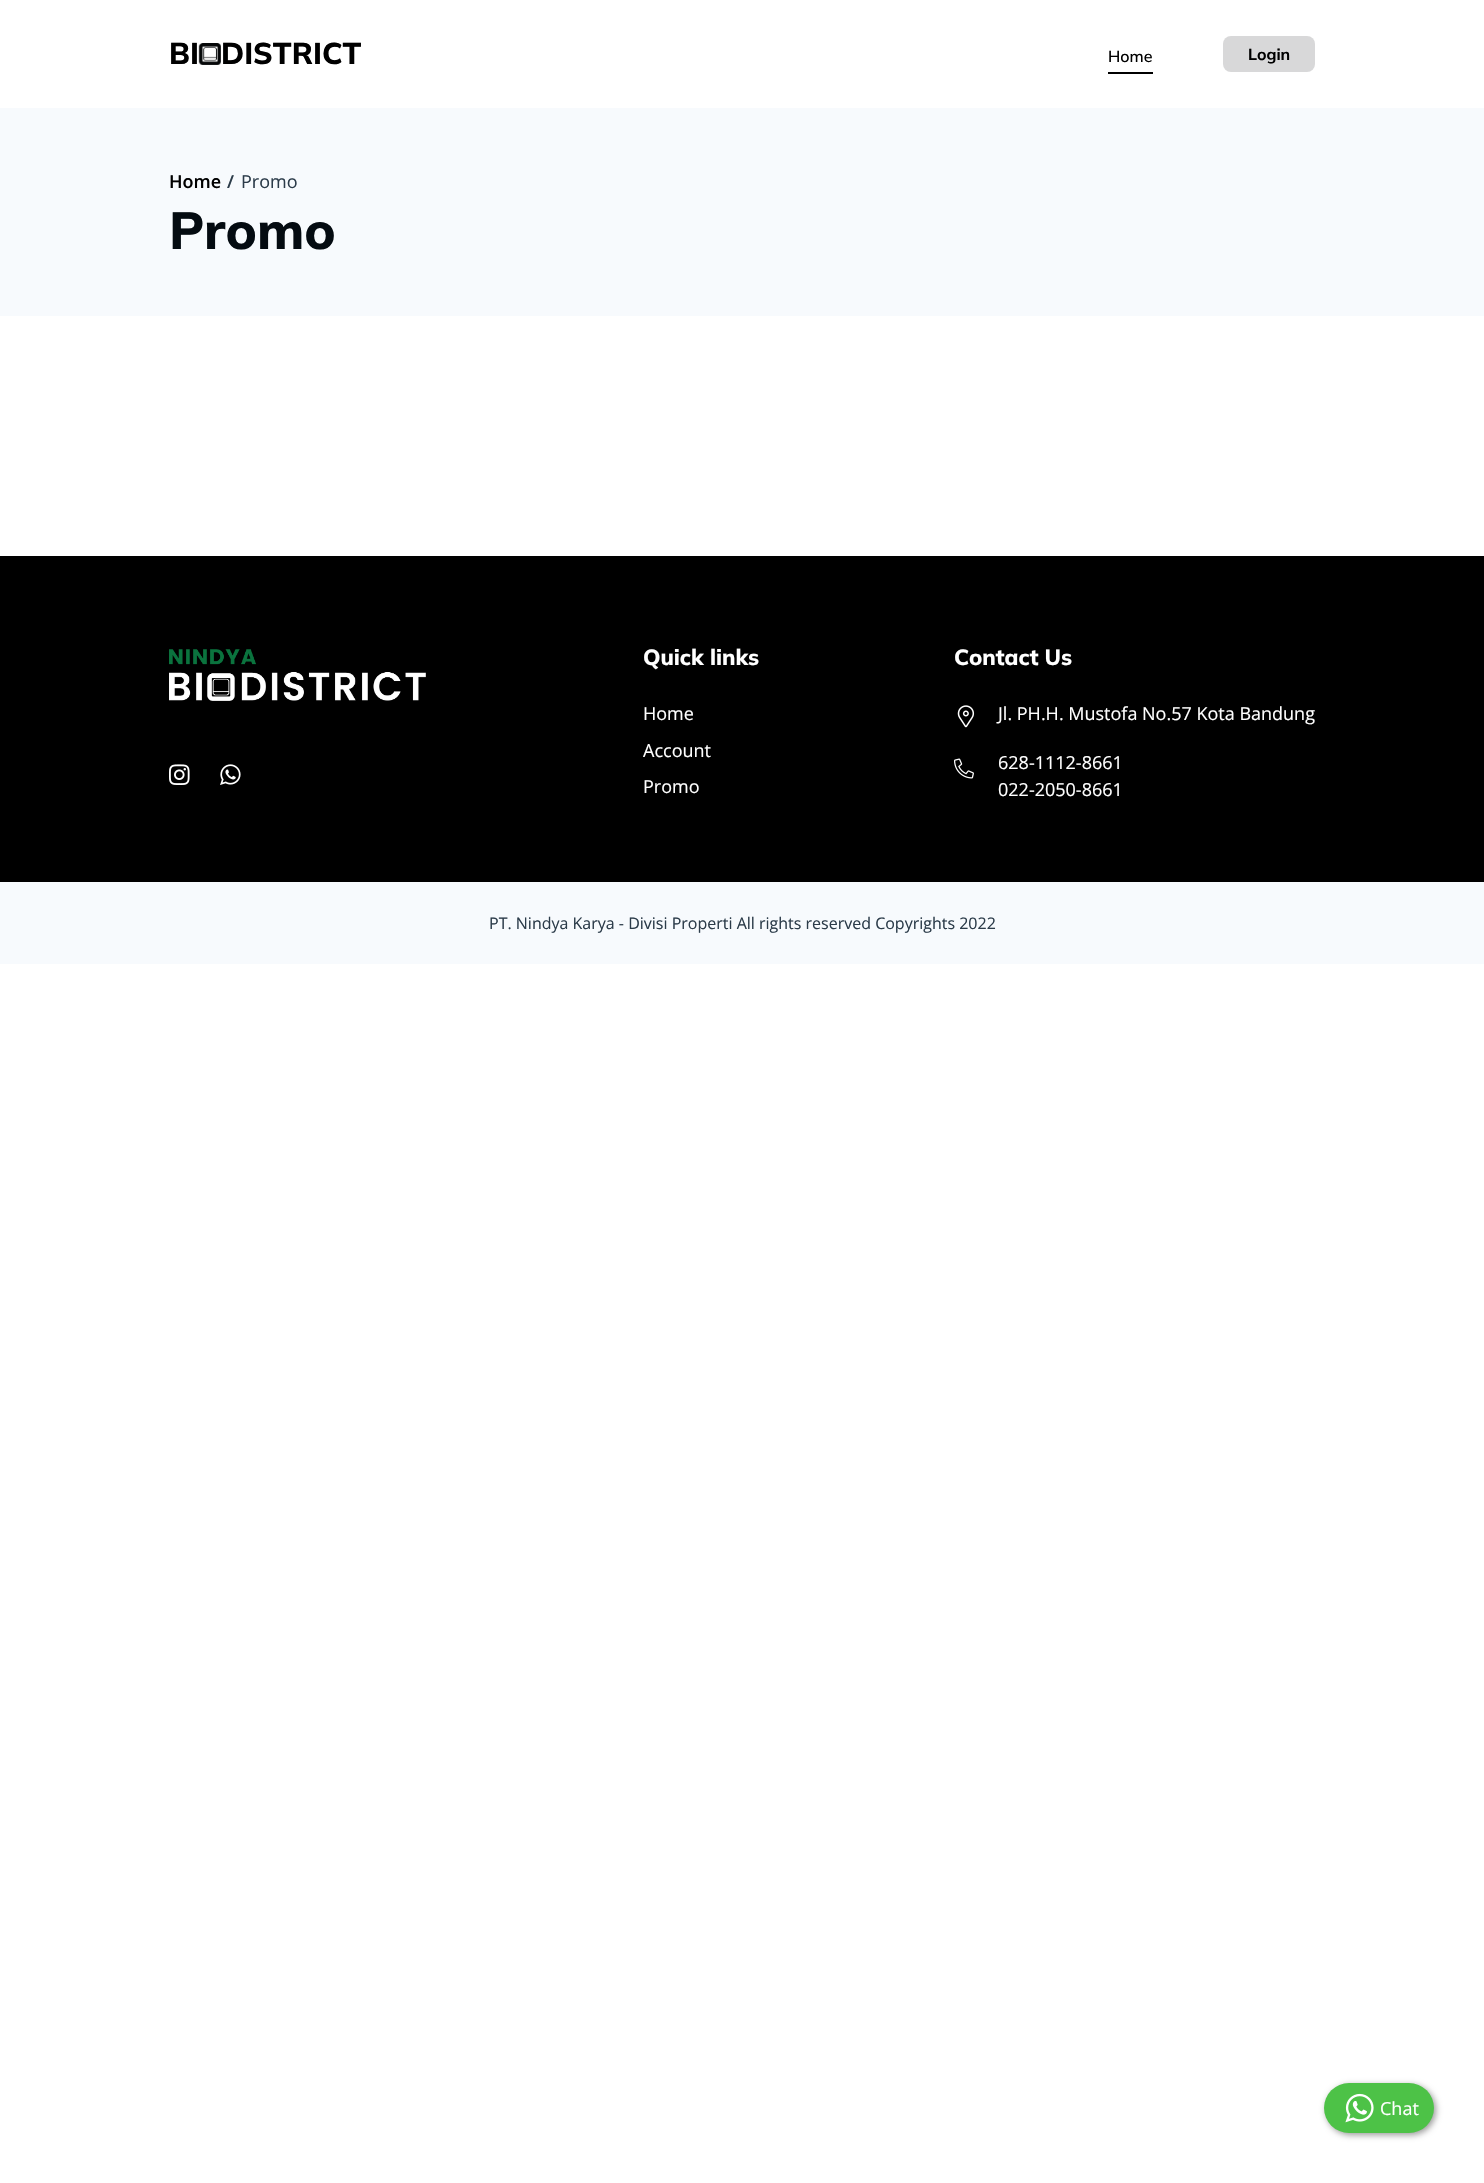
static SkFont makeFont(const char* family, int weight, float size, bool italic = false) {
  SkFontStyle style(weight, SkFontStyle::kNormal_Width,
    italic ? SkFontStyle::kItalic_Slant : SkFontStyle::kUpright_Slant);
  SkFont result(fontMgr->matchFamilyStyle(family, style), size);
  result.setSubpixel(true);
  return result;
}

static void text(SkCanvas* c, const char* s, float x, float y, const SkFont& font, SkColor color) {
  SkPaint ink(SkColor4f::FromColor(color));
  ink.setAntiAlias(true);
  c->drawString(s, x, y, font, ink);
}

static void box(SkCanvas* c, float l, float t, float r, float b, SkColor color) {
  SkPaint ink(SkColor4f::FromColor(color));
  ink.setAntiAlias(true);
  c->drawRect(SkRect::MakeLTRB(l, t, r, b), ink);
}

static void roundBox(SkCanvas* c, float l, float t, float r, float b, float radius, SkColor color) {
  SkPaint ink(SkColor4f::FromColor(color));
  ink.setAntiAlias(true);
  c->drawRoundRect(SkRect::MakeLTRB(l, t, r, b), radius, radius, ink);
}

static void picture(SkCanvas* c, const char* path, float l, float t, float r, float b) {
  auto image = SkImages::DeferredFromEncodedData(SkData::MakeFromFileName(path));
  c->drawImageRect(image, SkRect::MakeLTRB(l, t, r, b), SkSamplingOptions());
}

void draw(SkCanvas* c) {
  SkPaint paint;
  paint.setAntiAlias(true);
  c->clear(0xffffffff);
  SkFont face1 = makeFont("Mulish", 800, 30);
  text(c, "BI", 169, 64, face1, 0xff000000);
  picture(c, "img_01.png", 198, 43, 221, 65);
  text(c, "DISTRICT", 221, 64, face1, 0xff000000);
  SkFont face2 = makeFont("Mulish", 500, 16);
  text(c, "Home", 1108, 62, face2, 0xff000000);
  box(c, 1108, 72, 1153, 74, 0xff000000);
  roundBox(c, 1223, 36, 1315, 72, 8, 0xffd8d8d9);
  SkFont face3 = makeFont("Mulish", 700, 16);
  text(c, "Login", 1248, 60, face3, 0xff000000);
  box(c, 0, 108, 1484, 316, 0xfff7fafd);
  SkFont face4 = makeFont("Open Sans", 600, 18);
  text(c, "Home", 169, 188, face4, 0xff000000);
  text(c, "/", 227, 188, face4, 0xff2c3c4a);
  SkFont face5 = makeFont("Open Sans", 400, 18);
  text(c, "Promo", 241, 188, face5, 0xff2c3c4a);
  SkFont face6 = makeFont("Mulish", 800, 52);
  text(c, "Promo", 169, 249, face6, 0xff040b11);
  box(c, 0, 556, 1484, 882, 0xff000000);
  picture(c, "img_02.png", 169, 649, 426, 701);
  picture(c, "img_03.png", 169, 764, 190, 785);
  picture(c, "img_04.png", 220, 764, 241, 785);
  SkFont face7 = makeFont("Mulish", 800, 22);
  text(c, "Quick links", 643, 665, face7, 0xffffffff);
  text(c, "Home", 643, 720, face5, 0xffffffff);
  text(c, "Account", 643, 757, face5, 0xffffffff);
  text(c, "Promo", 643, 793, face5, 0xffffffff);
  text(c, "Contact Us", 954, 665, face7, 0xffffffff);
  picture(c, "img_05.png", 957, 705, 975, 728);
  text(c, "Jl. PH.H. Mustofa No.57 Kota Bandung", 998, 720, face5, 0xffffffff);
  picture(c, "img_06.png", 954, 758, 974, 779);
  text(c, "628-1112-8661", 998, 769, face5, 0xffffffff);
  text(c, "022-2050-8661", 998, 796, face5, 0xffffffff);
  box(c, 0, 882, 1484, 964, 0xfff7fafd);
  SkFont face8 = makeFont("Open Sans", 400, 16);
  text(c, "PT. Nindya Karya - Divisi Properti All rights reserved Copyrights 2022", 489, 929, face8, 0xff2c3c4a);
  paint.setColor(0x66000000);
  paint.setMaskFilter(SkMaskFilter::MakeBlur(kNormal_SkBlurStyle, 3));
  c->drawRoundRect(SkRect::MakeLTRB(1326, 2085, 1436, 2135), 25, 25, paint);
  paint.setMaskFilter(nullptr);
  roundBox(c, 1324, 2083, 1434, 2133, 25, 0xff4dc247);
  picture(c, "img_07.png", 1345, 2093, 1374, 2123);
  text(c, "Chat", 1380, 2115, face5, 0xffffffff);
}
